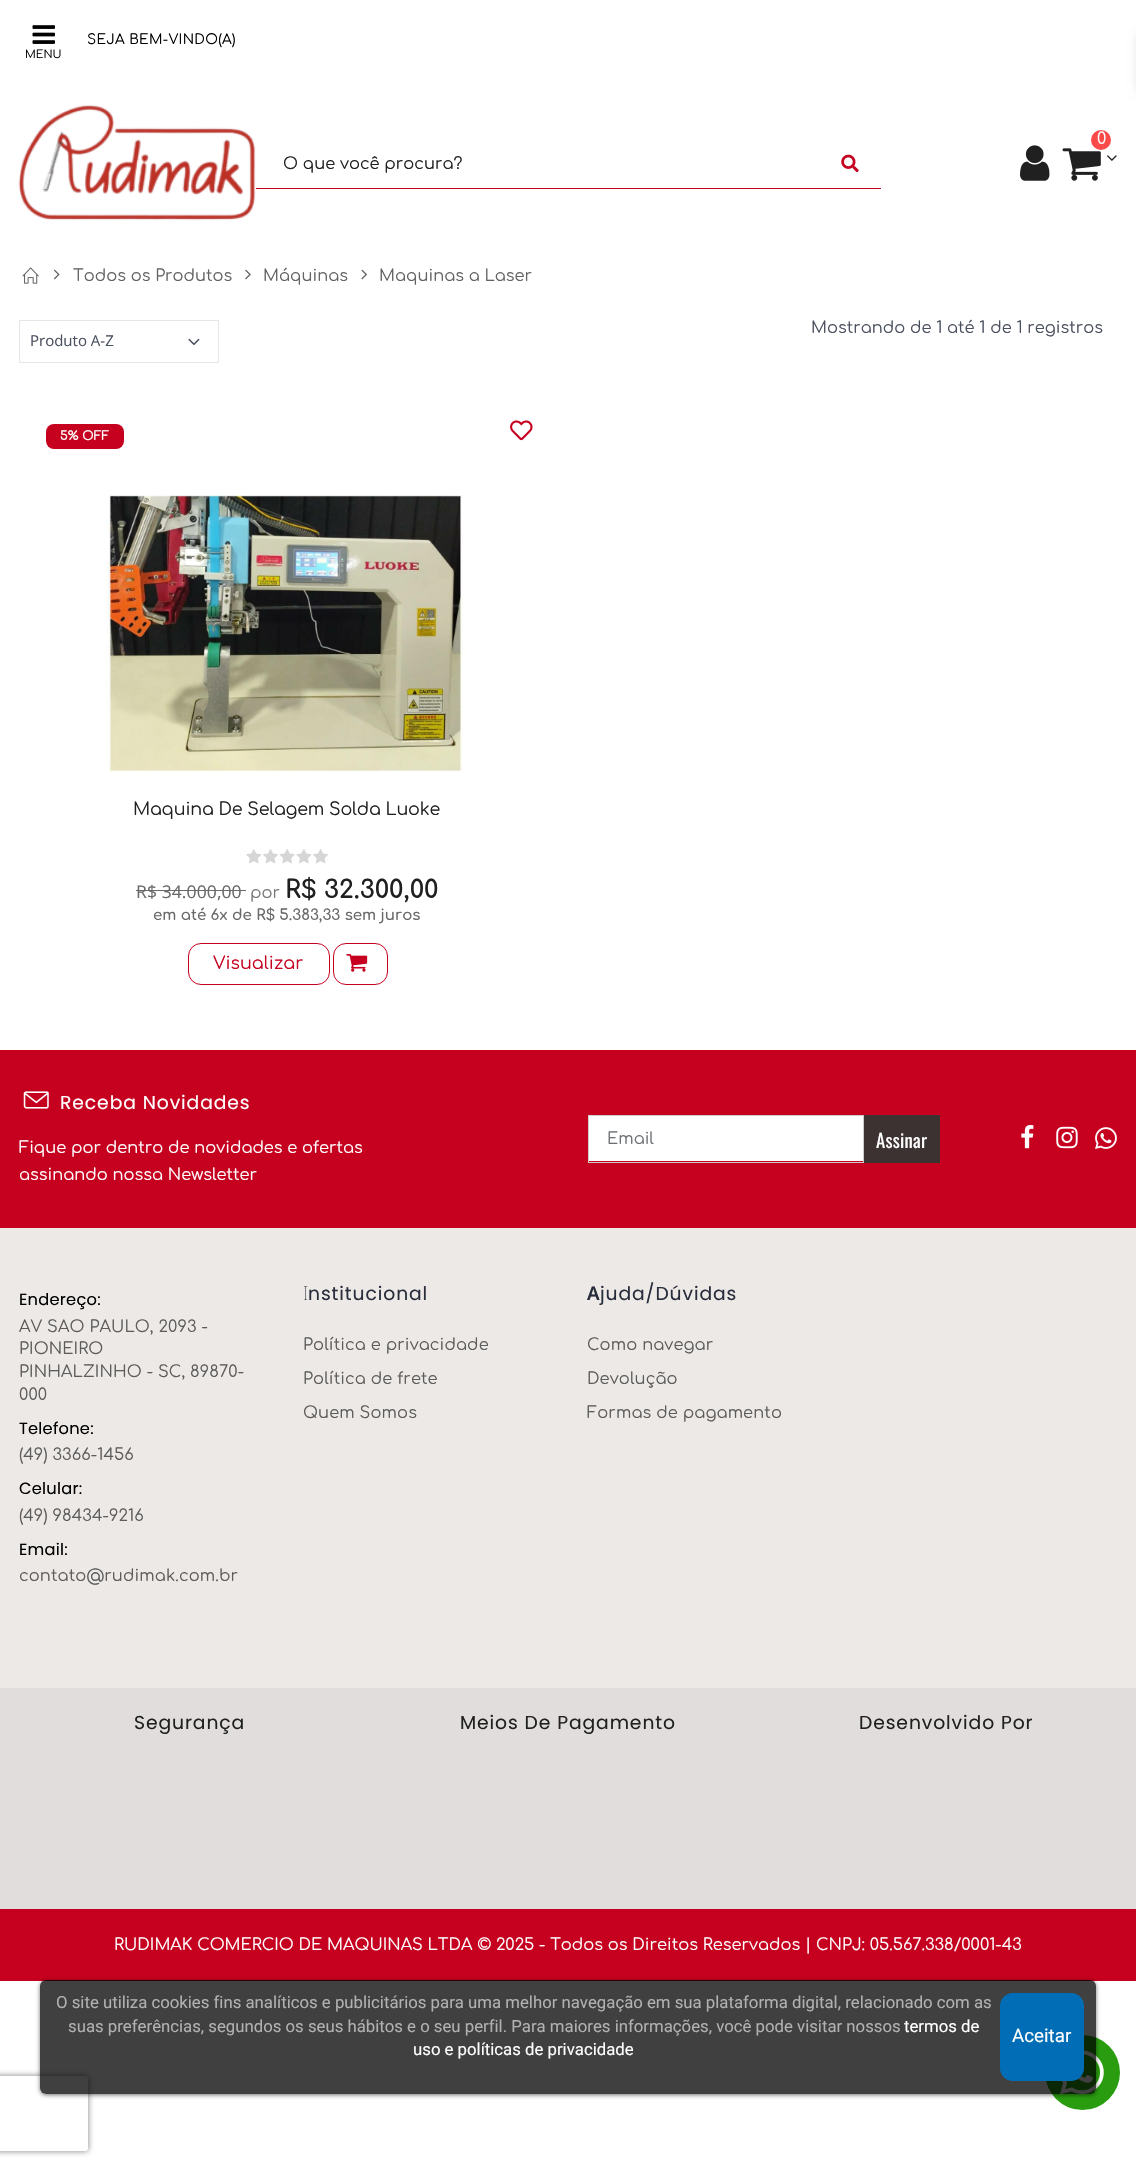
static SkFont makeFont(const char* family, int weight, float size, bool italic = false) {
  SkFontStyle style(weight, SkFontStyle::kNormal_Width,
    italic ? SkFontStyle::kItalic_Slant : SkFontStyle::kUpright_Slant);
  SkFont result(fontMgr->matchFamilyStyle(family, style), size);
  result.setSubpixel(true);
  return result;
}

static void text(SkCanvas* c, const char* s, float x, float y, const SkFont& font, SkColor color) {
  SkPaint ink(SkColor4f::FromColor(color));
  ink.setAntiAlias(true);
  c->drawString(s, x, y, font, ink);
}

static void spacedText(SkCanvas* c, const char* s, float x, float y, const SkFont& font, const SkPaint& ink, float letter, float word) {
  std::vector<SkGlyphID> glyphs(font.countText(s, strlen(s), SkTextEncoding::kUTF8));
  std::vector<float> xs(glyphs.size());
  font.textToGlyphs(s, strlen(s), SkTextEncoding::kUTF8, glyphs);
  font.getXPos(glyphs, xs, x);
  float extra = 0;
  for (size_t i = 0; i < glyphs.size(); i++) {
    xs[i] += extra;
    extra += letter + word * (glyphs[i] == font.unicharToGlyph(' '));
  }
  c->drawTextBlob(SkTextBlob::MakeFromPosHGlyphs(glyphs, xs, y, font), 0, 0, ink);
}

static void box(SkCanvas* c, float l, float t, float r, float b, SkColor color) {
  SkPaint ink(SkColor4f::FromColor(color));
  ink.setAntiAlias(true);
  c->drawRect(SkRect::MakeLTRB(l, t, r, b), ink);
}

static void roundBox(SkCanvas* c, float l, float t, float r, float b, float radius, SkColor color) {
  SkPaint ink(SkColor4f::FromColor(color));
  ink.setAntiAlias(true);
  c->drawRoundRect(SkRect::MakeLTRB(l, t, r, b), radius, radius, ink);
}

static void picture(SkCanvas* c, const char* path, float l, float t, float r, float b) {
  auto image = SkImages::DeferredFromEncodedData(SkData::MakeFromFileName(path));
  c->drawImageRect(image, SkRect::MakeLTRB(l, t, r, b), SkSamplingOptions());
}

void draw(SkCanvas* c) {
  SkPaint paint;
  paint.setAntiAlias(true);
  c->clear(0xffffffff);
  SkFont face1 = makeFont("Comfortaa", 400, 13.75f);
  paint.setColor(0xff000000);
  spacedText(c, "SEJA BEM-VINDO(A)", 87, 44, face1, paint, 0.3f, 0);
  picture(c, "img_01.png", 32, 25, 55, 44);
  SkFont face2 = makeFont("Comfortaa", 400, 11);
  text(c, "MENU", 25, 58, face2, 0xff000000);
  picture(c, "img_02.png", 18, 105, 256, 221);
  picture(c, "img_03.png", 1062, 148, 1101, 181);
  paint.setColor(0xfffa4a4a);
  c->drawCircle(1101, 140, 10, paint);
  SkFont face3 = makeFont("Comfortaa", 400, 16.25f);
  text(c, "0", 1097, 144, face3, 0xffffffff);
  picture(c, "img_04.png", 1107, 155, 1117, 161);
  picture(c, "img_05.png", 1020, 145, 1050, 181);
  box(c, 256, 188, 881, 189, 0xffc6001f);
  text(c, "O que você procura?", 283, 169, face3, 0xff202020);
  picture(c, "img_06.png", 841, 154, 859, 173);
  picture(c, "img_07.png", 22, 267, 39, 284);
  picture(c, "img_08.png", 53, 269, 60, 280);
  text(c, "Todos os Produtos", 73, 281, face3, 0xff636363);
  picture(c, "img_09.png", 245, 269, 251, 280);
  text(c, "Máquinas", 263, 281, face3, 0xff636363);
  picture(c, "img_10.png", 361, 269, 367, 280);
  text(c, "Maquinas a Laser", 379, 281, face3, 0xff636363);
  text(c, "Mostrando de 1 até 1 de 1 registros", 811, 333, face3, 0xff4a505e);
  paint.setStyle(SkPaint::kStroke_Style);
  paint.setStrokeWidth(1);
  paint.setColor(0xffe6e6e6);
  c->drawRect(SkRect::MakeLTRB(19.5f, 320.5f, 218.5f, 362.5f), paint);
  SkFont face4 = makeFont("Open Sans", 400, 15);
  text(c, "Produto A-Z", 30, 346, face4, 0xff4a505e);
  picture(c, "img_11.png", 188, 338, 200, 346);
  roundBox(c, 46, 424, 124, 449, 8, 0xffc6001f);
  SkFont face5 = makeFont("Comfortaa", 600, 12.5f);
  text(c, "5% OFF", 60, 440, face5, 0xffffffff);
  picture(c, "img_12.png", 510, 420, 533, 441);
  picture(c, "img_13.png", 106, 495, 466, 772);
  SkFont face6 = makeFont("Comfortaa", 400, 17.5f);
  paint.setStyle(SkPaint::kFill_Style);
  paint.setColor(0xff202020);
  spacedText(c, "Maquina De Selagem Solda Luoke", 133, 815, face6, paint, -0.2f, 0);
  picture(c, "img_14.png", 246, 849, 328, 864);
  SkFont face7 = makeFont("Open Sans", 400, 17.5f);
  paint.setColor(0xff696969);
  spacedText(c, "R$ 34.000,00", 136, 898, face7, paint, 0.1f, 0);
  box(c, 136, 890, 246, 891, 0xff696969);
  text(c, "por", 250, 898, face3, 0xff777777);
  SkFont face8 = makeFont("Comfortaa", 700, 25);
  text(c, "R$ 32.300,00", 285, 898, face8, 0xff202020);
  SkFont face9 = makeFont("Comfortaa", 600, 15);
  text(c, "em até 6x de R$ 5.383,33 sem juros", 153, 920, face9, 0xff696969);
  paint.setStyle(SkPaint::kStroke_Style);
  paint.setColor(0xffc6001f);
  c->drawRoundRect(SkRect::MakeLTRB(188.5f, 943.5f, 329.5f, 984.5f), 12.5f, 12.5f, paint);
  text(c, "Visualizar", 213, 969, face6, 0xffc6001f);
  c->drawRoundRect(SkRect::MakeLTRB(333.5f, 943.5f, 387.5f, 984.5f), 12.5f, 12.5f, paint);
  picture(c, "img_15.png", 346, 954, 368, 972);
  box(c, 0, 1228, 1136, 1688, 0xffede9e6);
  box(c, 0, 1050, 1136, 1228, 0xffc6001f);
  picture(c, "img_16.png", 23, 1091, 49, 1109);
  SkFont face10 = makeFont("Poppins", 400, 18.75f);
  paint.setStyle(SkPaint::kFill_Style);
  paint.setColor(0xffffffff);
  spacedText(c, "Receba Novidades", 60, 1109, face10, paint, 0.9f, 0);
  text(c, "Fique por dentro de novidades e ofertas", 19, 1153, face3, 0xffffffff);
  text(c, "assinando nossa Newsletter", 19, 1180, face3, 0xffffffff);
  box(c, 589, 1116, 863, 1161, 0xffffffff);
  paint.setStyle(SkPaint::kStroke_Style);
  paint.setColor(0xffcccccc);
  c->drawRect(SkRect::MakeLTRB(588.5f, 1115.5f, 863.5f, 1162.5f), paint);
  text(c, "Email", 607, 1144, face3, 0xff6b7074);
  box(c, 864, 1115, 940, 1163, 0xff3c3232);
  SkFont face11 = makeFont("Oswald", 400, 18.75f);
  paint.setStyle(SkPaint::kFill_Style);
  paint.setColor(0xffffffff);
  spacedText(c, "Assinar", 876, 1148, face11, paint, 0.25f, 0);
  picture(c, "img_17.png", 1021, 1125, 1034, 1149);
  picture(c, "img_18.png", 1056, 1126, 1078, 1149);
  picture(c, "img_19.png", 1095, 1127, 1117, 1149);
  SkFont face12 = makeFont("Poppins", 400, 16.25f);
  paint.setColor(0xff000000);
  spacedText(c, "Endereço:", 19, 1305, face12, paint, 0.25f, 0);
  paint.setColor(0xff5c5c5c);
  spacedText(c, "AV SAO PAULO, 2093 -", 19, 1332, face3, paint, 0.1f, 0);
  spacedText(c, "PIONEIRO", 19, 1354, face3, paint, 0.1f, 0);
  spacedText(c, "PINHALZINHO - SC, 89870-", 19, 1377, face3, paint, 0.1f, 0);
  spacedText(c, "000", 19, 1400, face3, paint, 0.1f, 0);
  paint.setColor(0xff000000);
  spacedText(c, "Telefone:", 19, 1434, face12, paint, 0.25f, 0);
  paint.setColor(0xff5c5c5c);
  spacedText(c, "(49) 3366-1456", 19, 1460, face3, paint, 0.1f, 0);
  paint.setColor(0xff000000);
  spacedText(c, "Celular:", 19, 1494, face12, paint, 0.25f, 0);
  paint.setColor(0xff5c5c5c);
  spacedText(c, "(49) 98434-9216", 19, 1521, face3, paint, 0.1f, 0);
  paint.setColor(0xff000000);
  spacedText(c, "Email:", 19, 1555, face12, paint, 0.25f, 0);
  paint.setColor(0xff5c5c5c);
  spacedText(c, "contato@rudimak.com.br", 19, 1581, face3, paint, 0.1f, 0);
  SkFont face13 = makeFont("Noto Sans", 100, 18.75f);
  paint.setColor(0xff282d3b);
  spacedText(c, "I", 303, 1300, face13, paint, 0.9f, 0);
  spacedText(c, "nstitucional", 308, 1300, face10, paint, 0.9f, 0);
  paint.setColor(0xff5c5c5c);
  spacedText(c, "Política e privacidade", 303, 1350, face3, paint, 0.1f, 0);
  spacedText(c, "Política de frete", 303, 1384, face3, paint, 0.1f, 0);
  spacedText(c, "Quem Somos", 303, 1418, face3, paint, 0.1f, 0);
  SkFont face14 = makeFont("Noto Sans", 600, 18.75f);
  paint.setColor(0xff282d3b);
  spacedText(c, "A", 587, 1300, face14, paint, 0.9f, 0);
  spacedText(c, "juda/Dúvidas", 600, 1300, face10, paint, 0.9f, 0);
  paint.setColor(0xff5c5c5c);
  spacedText(c, "Como navegar", 587, 1350, face3, paint, 0.1f, 0);
  spacedText(c, "Devolução", 587, 1384, face3, paint, 0.1f, 0);
  spacedText(c, "Formas de pagamento", 587, 1418, face3, paint, 0.1f, 0);
  box(c, 0, 1688, 1136, 1909, 0xffe0dddc);
  paint.setColor(0xff202020);
  spacedText(c, "Segurança", 134, 1729, face10, paint, 0.9f, 0);
  spacedText(c, "Meios De Pagamento", 460, 1729, face10, paint, 0.9f, 0);
  spacedText(c, "Desenvolvido Por", 859, 1729, face10, paint, 0.9f, 0);
  box(c, 0, 1909, 1136, 1981, 0xffc6001f);
  text(c, "RUDIMAK COMERCIO DE MAQUINAS LTDA © 2025 - Todos os Direitos Reservados | CNPJ: 05.567.338/0001-43", 114, 1950, face3, 0xffffffff);
  paint.setColor(0x33000000);
  paint.setMaskFilter(SkMaskFilter::MakeBlur(kNormal_SkBlurStyle, 6));
  c->drawRoundRect(SkRect::MakeLTRB(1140, 35, 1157, 91), 3, 3, paint);
  paint.setMaskFilter(nullptr);
  c->save();
  c->clipPath(SkPathBuilder(SkPathFillType::kEvenOdd).moveTo(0, 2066).lineTo(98, 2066).lineTo(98, 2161).lineTo(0, 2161).close().moveTo(-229.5f, 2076).lineTo(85.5f, 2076).cubicTo(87, 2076, 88, 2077, 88, 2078.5f).lineTo(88, 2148.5f).cubicTo(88, 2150, 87, 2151, 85.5f, 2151).lineTo(-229.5f, 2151).cubicTo(-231, 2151, -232, 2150, -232, 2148.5f).lineTo(-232, 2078.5f).cubicTo(-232, 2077, -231, 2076, -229.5f, 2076).close().detach(), true);
  paint.setColor(0xff808080);
  paint.setMaskFilter(SkMaskFilter::MakeBlur(kNormal_SkBlurStyle, 3));
  c->drawRoundRect(SkRect::MakeLTRB(-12, 2076, 88, 2151), 2.5f, 2.5f, paint);
  paint.setMaskFilter(nullptr);
  c->restore();
  paint.setColor(0xff299d0f);
  c->drawCircle(1082.5f, 2072.5f, 37.5f, paint);
  picture(c, "img_20.png", 1060, 2050, 1104, 2095);
  c->save();
  c->clipPath(SkPathBuilder(SkPathFillType::kEvenOdd).moveTo(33, 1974).lineTo(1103, 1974).lineTo(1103, 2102).lineTo(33, 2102).close().moveTo(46, 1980).lineTo(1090, 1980).cubicTo(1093.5f, 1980, 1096, 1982.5f, 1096, 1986).lineTo(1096, 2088).cubicTo(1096, 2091.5f, 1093.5f, 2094, 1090, 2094).lineTo(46, 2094).cubicTo(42.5f, 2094, 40, 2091.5f, 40, 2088).lineTo(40, 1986).cubicTo(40, 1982.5f, 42.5f, 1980, 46, 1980).close().detach(), true);
  paint.setColor(0x8c000000);
  paint.setMaskFilter(SkMaskFilter::MakeBlur(kNormal_SkBlurStyle, 2));
  c->drawRoundRect(SkRect::MakeLTRB(40, 1981, 1096, 2095), 6, 6, paint);
  paint.setMaskFilter(nullptr);
  c->restore();
  roundBox(c, 40, 1980, 1096, 2094, 6, 0xbf000000);
  SkFont face15 = makeFont("Roboto", 400, 16.75f);
  text(c, "O site utiliza cookies fins analíticos e publicitários para uma melhor navegação em sua plataforma digital, relacionado com as", 56, 2008, face15, 0xffb1b1b1);
  text(c, "suas preferências, segundos os seus hábitos e o seu perfil. Para maiores informações, você pode visitar nossos", 68, 2032, face15, 0xffb1b1b1);
  text(c, "termos de", 904, 2032, face15, 0xffffffff);
  text(c, "uso e políticas de privacidade", 413, 2055, face15, 0xffffffff);
  roundBox(c, 1000, 1993, 1084, 2081, 13, 0xff006db6);
  SkFont face16 = makeFont("Roboto", 400, 18.75f);
  text(c, "Aceitar", 1012, 2042, face16, 0xffffffff);
}
